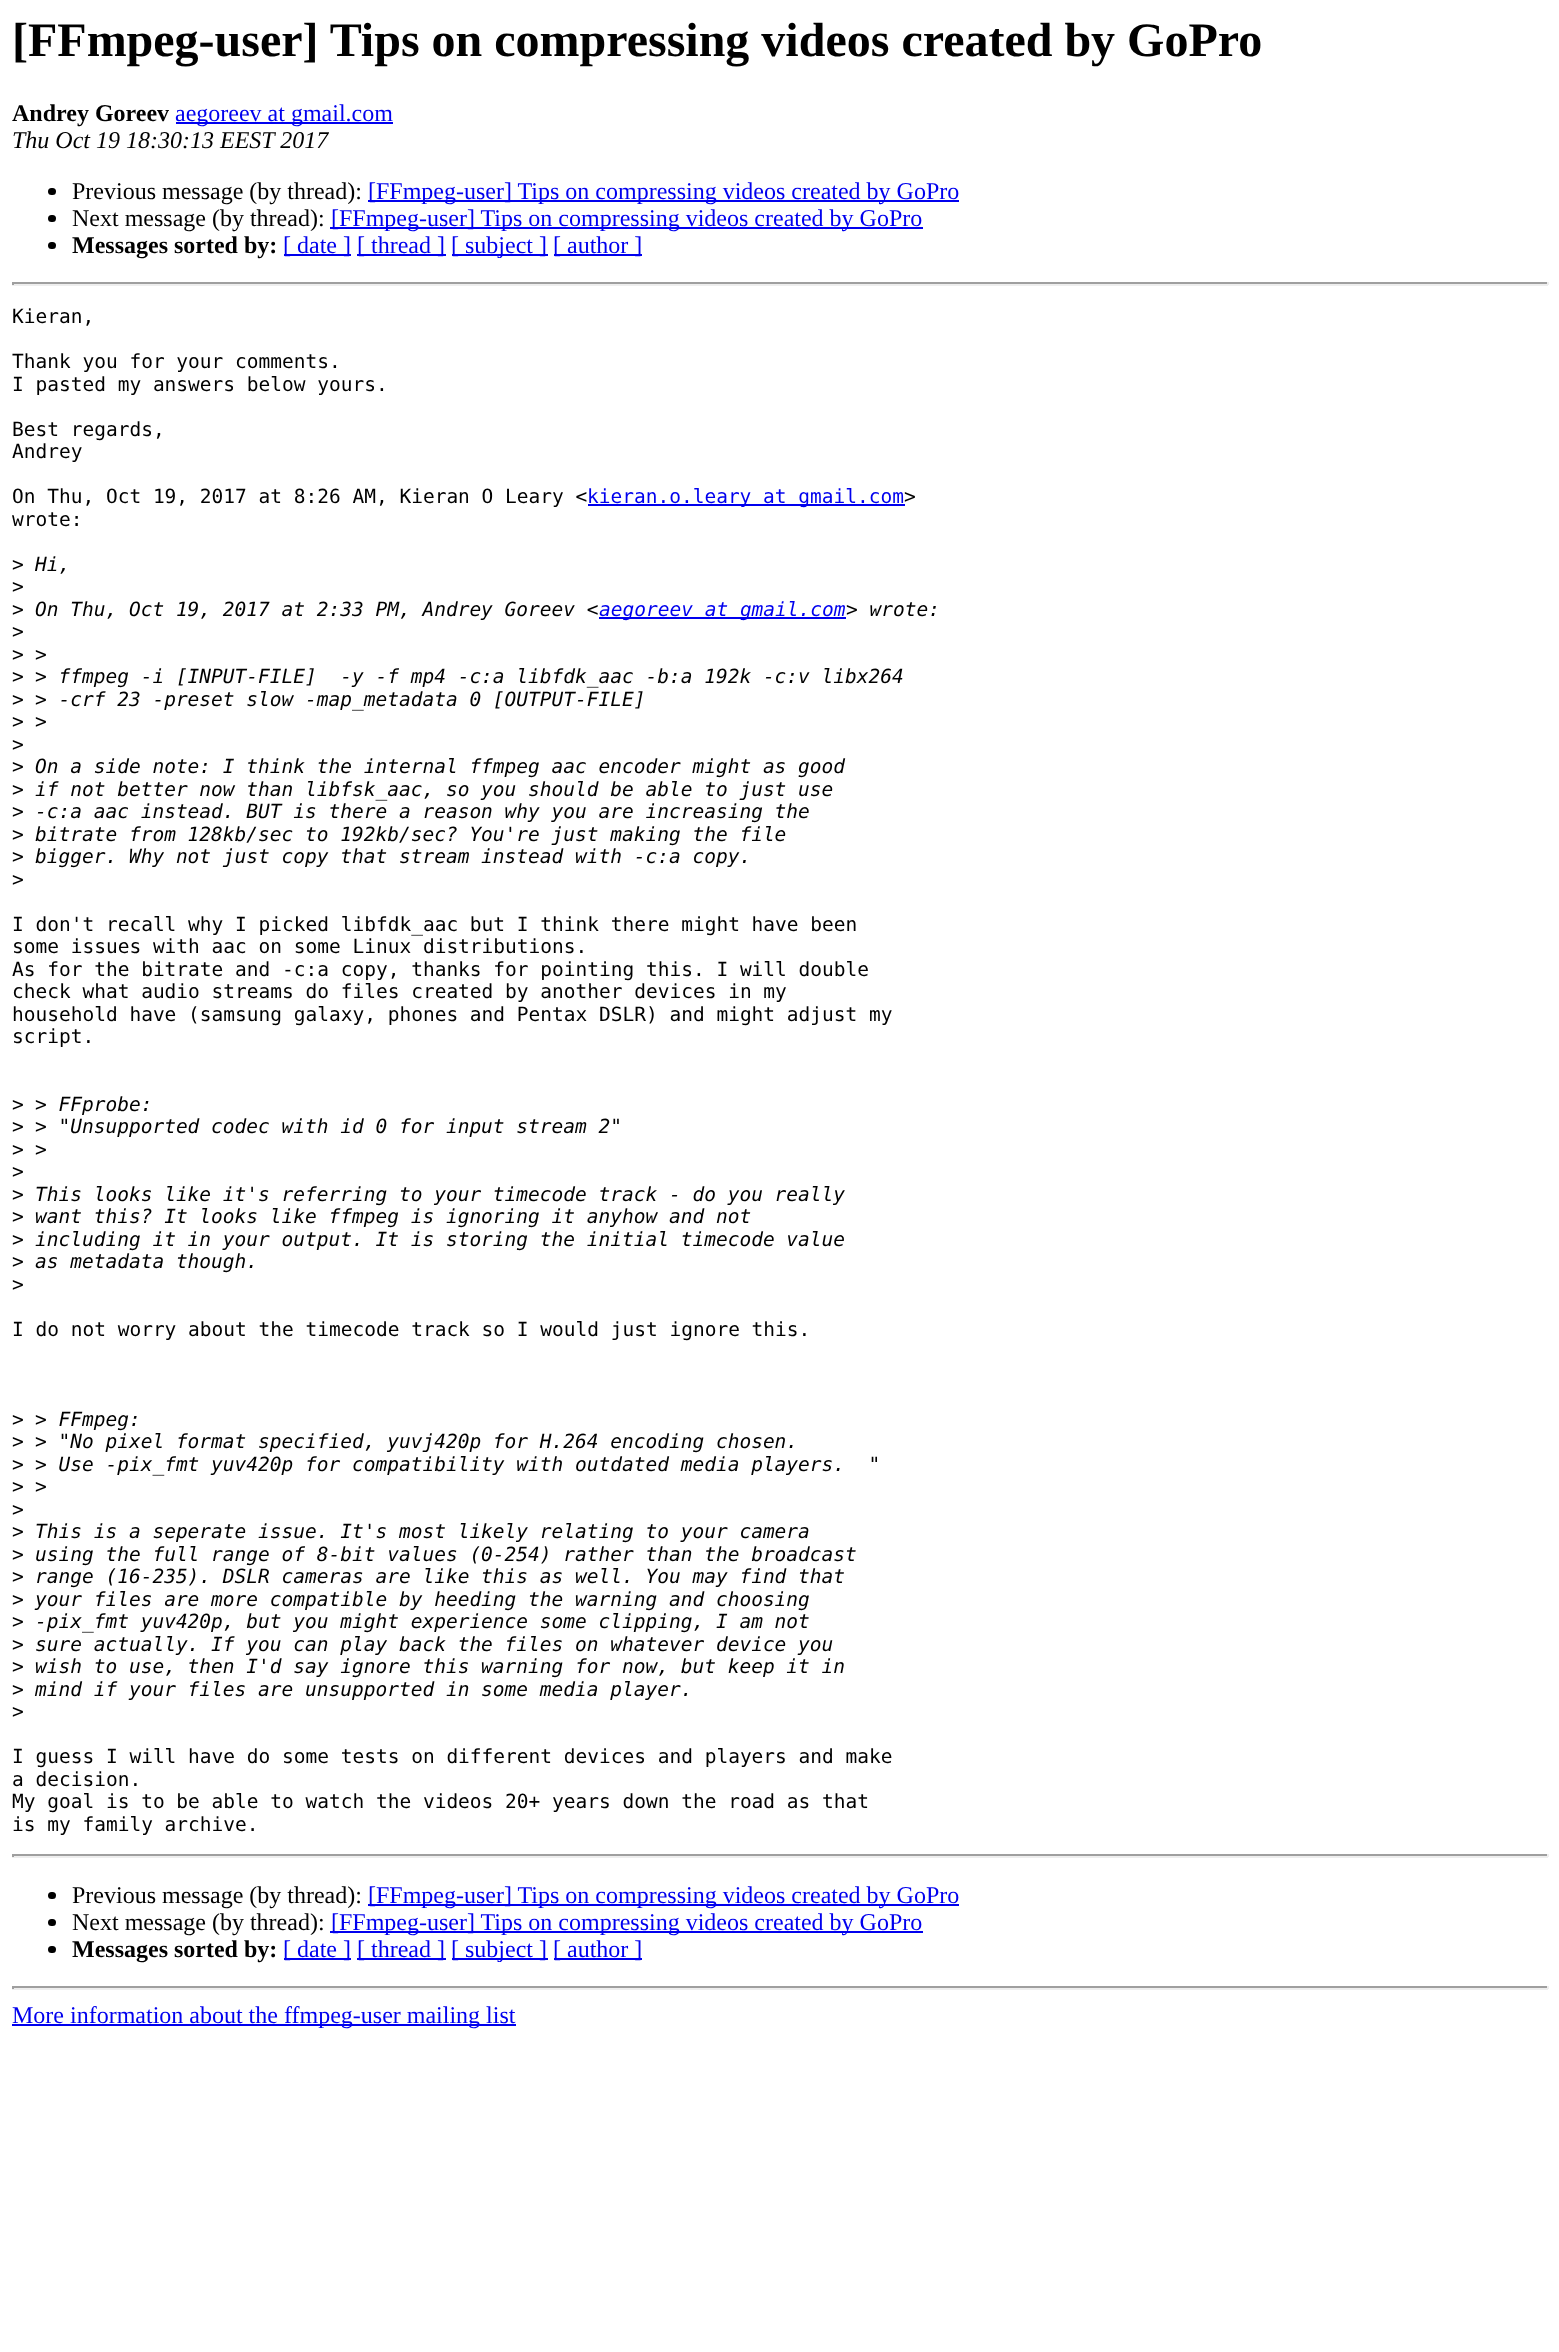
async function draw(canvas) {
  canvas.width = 1559
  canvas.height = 2352
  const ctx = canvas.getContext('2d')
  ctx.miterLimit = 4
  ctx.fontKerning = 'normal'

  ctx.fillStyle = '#fff'
  ctx.fillRect(0, 0, 1559, 2352)
  ctx.font = 'bold 48px Liberation Serif'
  ctx.fillStyle = '#000'
  ctx.fillText('[FFmpeg-user] Tips on compressing videos created by GoPro', 12, 56)
  ctx.font = 'bold 24px Liberation Serif'
  ctx.fillText('Andrey Goreev', 12, 121)
  ctx.fillStyle = '#00e'
  ctx.fillRect(176, 122, 217, 2)
  ctx.font = '24px Liberation Serif'
  ctx.fillText('aegoreev at gmail.com', 175, 121)
  ctx.font = 'italic 24px Liberation Serif'
  ctx.fillStyle = '#000'
  ctx.fillText('Thu Oct 19 18:30:13 EEST 2017', 12, 148)
  ctx.beginPath()
  ctx.roundRect(48, 188, 8, 7, 3.5)
  ctx.fill()
  ctx.font = '24px Liberation Serif'
  ctx.fillText('Previous message (by thread):', 72, 199)
  ctx.fillStyle = '#00e'
  ctx.fillRect(368, 200, 591, 2)
  ctx.fillText('[FFmpeg-user] Tips on compressing videos created by GoPro', 368, 199)
  ctx.fillStyle = '#000'
  ctx.beginPath()
  ctx.roundRect(48, 215, 8, 7, 3.5)
  ctx.fill()
  ctx.fillText('Next message (by thread):', 72, 226)
  ctx.fillStyle = '#00e'
  ctx.fillRect(330, 227, 593, 2)
  ctx.fillText('[FFmpeg-user] Tips on compressing videos created by GoPro', 331, 226)
  ctx.fillStyle = '#000'
  ctx.beginPath()
  ctx.roundRect(48, 242, 8, 7, 3.5)
  ctx.fill()
  ctx.font = 'bold 24px Liberation Serif'
  ctx.fillText('Messages sorted by:', 72, 253)
  ctx.fillStyle = '#00e'
  ctx.fillRect(284, 254, 67, 2)
  ctx.font = '24px Liberation Serif'
  ctx.fillText('[ date ]', 283, 253)
  ctx.fillRect(357, 254, 89, 2)
  ctx.fillText('[ thread ]', 357, 253)
  ctx.fillRect(452, 254, 96, 2)
  ctx.fillText('[ subject ]', 451, 253)
  ctx.fillRect(554, 254, 88, 2)
  ctx.fillText('[ author ]', 553, 253)
  ctx.fillStyle = '#9f9f9f'
  ctx.fillRect(12, 282, 1536, 2)
  ctx.fillStyle = '#eee'
  ctx.fillRect(1547, 282, 2, 3)
  ctx.fillRect(12, 284, 1536, 2)
  ctx.fillStyle = '#9f9f9f'
  ctx.fillRect(12, 282, 2, 3)
  ctx.font = '19.5px DejaVu Sans Mono'
  ctx.fillStyle = '#000'
  ctx.fillText('Kieran,', 12, 323)
  ctx.fillText('Thank you for your comments.', 12, 368)
  ctx.fillText('I pasted my answers below yours.', 12, 391)
  ctx.fillText('Best regards,', 12, 436)
  ctx.fillText('Andrey', 12, 458)
  ctx.fillText('On Thu, Oct 19, 2017 at 8:26 AM, Kieran O Leary <', 12, 503)
  ctx.fillStyle = '#00e'
  ctx.fillRect(588, 504, 317, 2)
  ctx.fillText('kieran.o.leary at gmail.com', 587, 503)
  ctx.fillStyle = '#000'
  ctx.fillText('>', 904, 503)
  ctx.fillText('wrote:', 12, 526)
  ctx.fillText('>', 12, 571)
  ctx.font = 'italic 19.5px DejaVu Sans Mono'
  ctx.fillText('Hi,', 35, 571)
  ctx.font = '19.5px DejaVu Sans Mono'
  ctx.fillText('>', 12, 593)
  ctx.fillText('>', 12, 616)
  ctx.font = 'italic 19.5px DejaVu Sans Mono'
  ctx.fillText('On Thu, Oct 19, 2017 at 2:33 PM, Andrey Goreev <', 35, 616)
  ctx.fillStyle = '#00e'
  ctx.fillRect(599, 617, 247, 2)
  ctx.fillText('aegoreev at gmail.com', 599, 616)
  ctx.fillStyle = '#000'
  ctx.fillText('> wrote:', 846, 616)
  ctx.font = '19.5px DejaVu Sans Mono'
  ctx.fillText('>', 12, 638)
  ctx.fillText('>', 12, 661)
  ctx.font = 'italic 19.5px DejaVu Sans Mono'
  ctx.fillText('>', 35, 661)
  ctx.font = '19.5px DejaVu Sans Mono'
  ctx.fillText('>', 12, 683)
  ctx.font = 'italic 19.5px DejaVu Sans Mono'
  ctx.fillText('> ffmpeg -i [INPUT-FILE]  -y -f mp4 -c:a libfdk_aac -b:a 192k -c:v libx264', 35, 683)
  ctx.font = '19.5px DejaVu Sans Mono'
  ctx.fillText('>', 12, 706)
  ctx.font = 'italic 19.5px DejaVu Sans Mono'
  ctx.fillText('> -crf 23 -preset slow -map_metadata 0 [OUTPUT-FILE]', 35, 706)
  ctx.font = '19.5px DejaVu Sans Mono'
  ctx.fillText('>', 12, 728)
  ctx.font = 'italic 19.5px DejaVu Sans Mono'
  ctx.fillText('>', 35, 728)
  ctx.font = '19.5px DejaVu Sans Mono'
  ctx.fillText('>', 12, 751)
  ctx.fillText('>', 12, 773)
  ctx.font = 'italic 19.5px DejaVu Sans Mono'
  ctx.fillText('On a side note: I think the internal ffmpeg aac encoder might as good', 35, 773)
  ctx.font = '19.5px DejaVu Sans Mono'
  ctx.fillText('>', 12, 796)
  ctx.font = 'italic 19.5px DejaVu Sans Mono'
  ctx.fillText('if not better now than libfsk_aac, so you should be able to just use', 35, 796)
  ctx.font = '19.5px DejaVu Sans Mono'
  ctx.fillText('>', 12, 818)
  ctx.font = 'italic 19.5px DejaVu Sans Mono'
  ctx.fillText('-c:a aac instead. BUT is there a reason why you are increasing the', 35, 818)
  ctx.font = '19.5px DejaVu Sans Mono'
  ctx.fillText('>', 12, 841)
  ctx.font = 'italic 19.5px DejaVu Sans Mono'
  ctx.fillText('bitrate from 128kb/sec to 192kb/sec? You\'re just making the file', 35, 841)
  ctx.font = '19.5px DejaVu Sans Mono'
  ctx.fillText('>', 12, 863)
  ctx.font = 'italic 19.5px DejaVu Sans Mono'
  ctx.fillText('bigger. Why not just copy that stream instead with -c:a copy.', 35, 863)
  ctx.font = '19.5px DejaVu Sans Mono'
  ctx.fillText('>', 12, 886)
  ctx.fillText('I don\'t recall why I picked libfdk_aac but I think there might have been', 12, 931)
  ctx.fillText('some issues with aac on some Linux distributions.', 12, 953)
  ctx.fillText('As for the bitrate and -c:a copy, thanks for pointing this. I will double', 12, 976)
  ctx.fillText('check what audio streams do files created by another devices in my', 12, 998)
  ctx.fillText('household have (samsung galaxy, phones and Pentax DSLR) and might adjust my', 12, 1021)
  ctx.fillText('script.', 12, 1043)
  ctx.fillText('>', 12, 1111)
  ctx.font = 'italic 19.5px DejaVu Sans Mono'
  ctx.fillText('> FFprobe:', 35, 1111)
  ctx.font = '19.5px DejaVu Sans Mono'
  ctx.fillText('>', 12, 1133)
  ctx.font = 'italic 19.5px DejaVu Sans Mono'
  ctx.fillText('> "Unsupported codec with id 0 for input stream 2"', 35, 1133)
  ctx.font = '19.5px DejaVu Sans Mono'
  ctx.fillText('>', 12, 1156)
  ctx.font = 'italic 19.5px DejaVu Sans Mono'
  ctx.fillText('>', 35, 1156)
  ctx.font = '19.5px DejaVu Sans Mono'
  ctx.fillText('>', 12, 1178)
  ctx.fillText('>', 12, 1201)
  ctx.font = 'italic 19.5px DejaVu Sans Mono'
  ctx.fillText('This looks like it\'s referring to your timecode track - do you really', 35, 1201)
  ctx.font = '19.5px DejaVu Sans Mono'
  ctx.fillText('>', 12, 1223)
  ctx.font = 'italic 19.5px DejaVu Sans Mono'
  ctx.fillText('want this? It looks like ffmpeg is ignoring it anyhow and not', 35, 1223)
  ctx.font = '19.5px DejaVu Sans Mono'
  ctx.fillText('>', 12, 1246)
  ctx.font = 'italic 19.5px DejaVu Sans Mono'
  ctx.fillText('including it in your output. It is storing the initial timecode value', 35, 1246)
  ctx.font = '19.5px DejaVu Sans Mono'
  ctx.fillText('>', 12, 1268)
  ctx.font = 'italic 19.5px DejaVu Sans Mono'
  ctx.fillText('as metadata though.', 35, 1268)
  ctx.font = '19.5px DejaVu Sans Mono'
  ctx.fillText('>', 12, 1291)
  ctx.fillText('I do not worry about the timecode track so I would just ignore this.', 12, 1336)
  ctx.fillText('>', 12, 1426)
  ctx.font = 'italic 19.5px DejaVu Sans Mono'
  ctx.fillText('> FFmpeg:', 35, 1426)
  ctx.font = '19.5px DejaVu Sans Mono'
  ctx.fillText('>', 12, 1448)
  ctx.font = 'italic 19.5px DejaVu Sans Mono'
  ctx.fillText('> "No pixel format specified, yuvj420p for H.264 encoding chosen.', 35, 1448)
  ctx.font = '19.5px DejaVu Sans Mono'
  ctx.fillText('>', 12, 1471)
  ctx.font = 'italic 19.5px DejaVu Sans Mono'
  ctx.fillText('> Use -pix_fmt yuv420p for compatibility with outdated media players.  "', 35, 1471)
  ctx.font = '19.5px DejaVu Sans Mono'
  ctx.fillText('>', 12, 1493)
  ctx.font = 'italic 19.5px DejaVu Sans Mono'
  ctx.fillText('>', 35, 1493)
  ctx.font = '19.5px DejaVu Sans Mono'
  ctx.fillText('>', 12, 1516)
  ctx.fillText('>', 12, 1538)
  ctx.font = 'italic 19.5px DejaVu Sans Mono'
  ctx.fillText('This is a seperate issue. It\'s most likely relating to your camera', 35, 1538)
  ctx.font = '19.5px DejaVu Sans Mono'
  ctx.fillText('>', 12, 1561)
  ctx.font = 'italic 19.5px DejaVu Sans Mono'
  ctx.fillText('using the full range of 8-bit values (0-254) rather than the broadcast', 35, 1561)
  ctx.font = '19.5px DejaVu Sans Mono'
  ctx.fillText('>', 12, 1583)
  ctx.font = 'italic 19.5px DejaVu Sans Mono'
  ctx.fillText('range (16-235). DSLR cameras are like this as well. You may find that', 35, 1583)
  ctx.font = '19.5px DejaVu Sans Mono'
  ctx.fillText('>', 12, 1606)
  ctx.font = 'italic 19.5px DejaVu Sans Mono'
  ctx.fillText('your files are more compatible by heeding the warning and choosing', 35, 1606)
  ctx.font = '19.5px DejaVu Sans Mono'
  ctx.fillText('>', 12, 1628)
  ctx.font = 'italic 19.5px DejaVu Sans Mono'
  ctx.fillText('-pix_fmt yuv420p, but you might experience some clipping, I am not', 35, 1628)
  ctx.font = '19.5px DejaVu Sans Mono'
  ctx.fillText('>', 12, 1651)
  ctx.font = 'italic 19.5px DejaVu Sans Mono'
  ctx.fillText('sure actually. If you can play back the files on whatever device you', 35, 1651)
  ctx.font = '19.5px DejaVu Sans Mono'
  ctx.fillText('>', 12, 1673)
  ctx.font = 'italic 19.5px DejaVu Sans Mono'
  ctx.fillText('wish to use, then I\'d say ignore this warning for now, but keep it in', 35, 1673)
  ctx.font = '19.5px DejaVu Sans Mono'
  ctx.fillText('>', 12, 1696)
  ctx.font = 'italic 19.5px DejaVu Sans Mono'
  ctx.fillText('mind if your files are unsupported in some media player.', 35, 1696)
  ctx.font = '19.5px DejaVu Sans Mono'
  ctx.fillText('>', 12, 1718)
  ctx.fillText('I guess I will have do some tests on different devices and players and make', 12, 1763)
  ctx.fillText('a decision.', 12, 1786)
  ctx.fillText('My goal is to be able to watch the videos 20+ years down the road as that', 12, 1808)
  ctx.fillText('is my family archive.', 12, 1831)
  ctx.fillStyle = '#9f9f9f'
  ctx.fillRect(12, 1854, 1536, 2)
  ctx.fillStyle = '#eee'
  ctx.fillRect(1547, 1854, 2, 3)
  ctx.fillRect(12, 1856, 1536, 2)
  ctx.fillStyle = '#9f9f9f'
  ctx.fillRect(12, 1854, 2, 3)
  ctx.fillStyle = '#000'
  ctx.beginPath()
  ctx.roundRect(48, 1892, 8, 7, 3.5)
  ctx.fill()
  ctx.font = '24px Liberation Serif'
  ctx.fillText('Previous message (by thread):', 72, 1903)
  ctx.fillStyle = '#00e'
  ctx.fillRect(368, 1904, 591, 2)
  ctx.fillText('[FFmpeg-user] Tips on compressing videos created by GoPro', 368, 1903)
  ctx.fillStyle = '#000'
  ctx.beginPath()
  ctx.roundRect(48, 1919, 8, 7, 3.5)
  ctx.fill()
  ctx.fillText('Next message (by thread):', 72, 1930)
  ctx.fillStyle = '#00e'
  ctx.fillRect(330, 1931, 593, 2)
  ctx.fillText('[FFmpeg-user] Tips on compressing videos created by GoPro', 331, 1930)
  ctx.fillStyle = '#000'
  ctx.beginPath()
  ctx.roundRect(48, 1946, 8, 7, 3.5)
  ctx.fill()
  ctx.font = 'bold 24px Liberation Serif'
  ctx.fillText('Messages sorted by:', 72, 1957)
  ctx.fillStyle = '#00e'
  ctx.fillRect(284, 1958, 67, 2)
  ctx.font = '24px Liberation Serif'
  ctx.fillText('[ date ]', 283, 1957)
  ctx.fillRect(357, 1958, 89, 2)
  ctx.fillText('[ thread ]', 357, 1957)
  ctx.fillRect(452, 1958, 96, 2)
  ctx.fillText('[ subject ]', 451, 1957)
  ctx.fillRect(554, 1958, 88, 2)
  ctx.fillText('[ author ]', 553, 1957)
  ctx.fillStyle = '#9f9f9f'
  ctx.fillRect(12, 1986, 1536, 2)
  ctx.fillStyle = '#eee'
  ctx.fillRect(1547, 1986, 2, 3)
  ctx.fillRect(12, 1988, 1536, 2)
  ctx.fillStyle = '#9f9f9f'
  ctx.fillRect(12, 1986, 2, 3)
  ctx.fillStyle = '#00e'
  ctx.fillRect(12, 2024, 504, 2)
  ctx.fillText('More information about the ffmpeg-user mailing list', 12, 2023)
}

draw(document.querySelector('canvas'))
